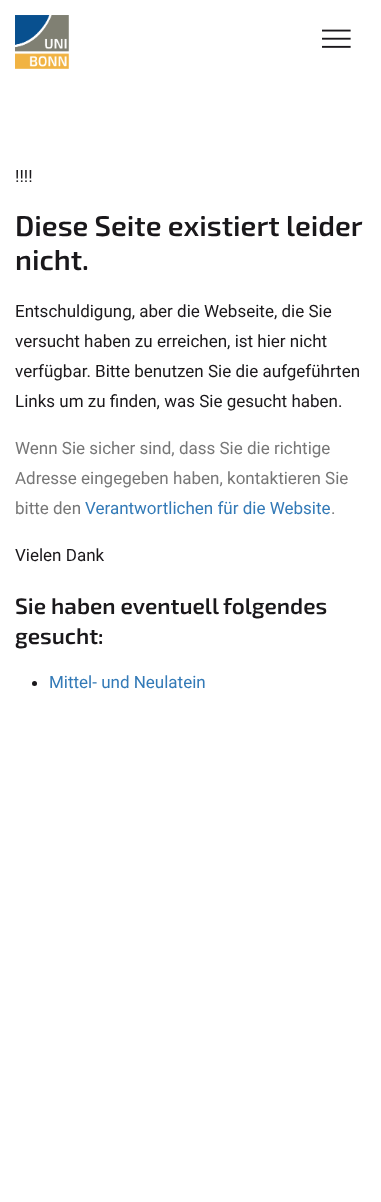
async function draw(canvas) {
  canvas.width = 381
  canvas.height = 1202
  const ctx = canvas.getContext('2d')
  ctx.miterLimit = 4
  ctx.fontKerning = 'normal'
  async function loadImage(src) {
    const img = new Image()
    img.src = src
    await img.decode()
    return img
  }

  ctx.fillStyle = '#fff'
  ctx.fillRect(0, 0, 381, 1202)
  ctx.drawImage(await loadImage('image0.png'), 15, 15, 54, 54)
  ctx.drawImage(await loadImage('image1.png'), 322, 29, 29, 19)
  ctx.font = '17px Roboto'
  ctx.fillStyle = '#1a181b'
  ctx.fillText('!!!!', 15, 182)
  ctx.font = '600 28.6px "Exo 2"'
  ctx.fillText('Diese Seite existiert leider', 15, 236)
  ctx.fillText('nicht.', 15, 270)
  ctx.font = '17px Roboto'
  ctx.fillText('Entschuldigung, aber die Webseite, die Sie', 15, 317)
  ctx.fillText('versucht haben zu erreichen, ist hier nicht', 15, 347)
  ctx.fillText('verfügbar. Bitte benutzen Sie die aufgeführten', 15, 377)
  ctx.fillText('Links um zu finden, was Sie gesucht haben.', 15, 407)
  ctx.fillStyle = '#777'
  ctx.fillText('Wenn Sie sicher sind, dass Sie die richtige', 15, 454)
  ctx.fillText('Adresse eingegeben haben, kontaktieren Sie', 15, 484)
  ctx.fillText('bitte den', 15, 514)
  ctx.fillStyle = '#337ab7'
  ctx.fillText('Verantwortlichen für die Website', 85, 514)
  ctx.fillStyle = '#777'
  ctx.fillText('.', 331, 514)
  ctx.fillStyle = '#1a181b'
  ctx.fillText('Vielen Dank', 15, 561)
  ctx.font = '600 22.4px "Exo 2"'
  ctx.fillText('Sie haben eventuell folgendes', 15, 614)
  ctx.fillText('gesucht:', 15, 644)
  ctx.beginPath()
  ctx.arc(34.5, 683.5, 2.5, 0, 2 * Math.PI)
  ctx.fill()
  ctx.font = '17px Roboto'
  ctx.fillStyle = '#337ab7'
  ctx.fillText('Mittel- und Neulatein', 49, 688)
}

draw(document.querySelector('canvas'))
